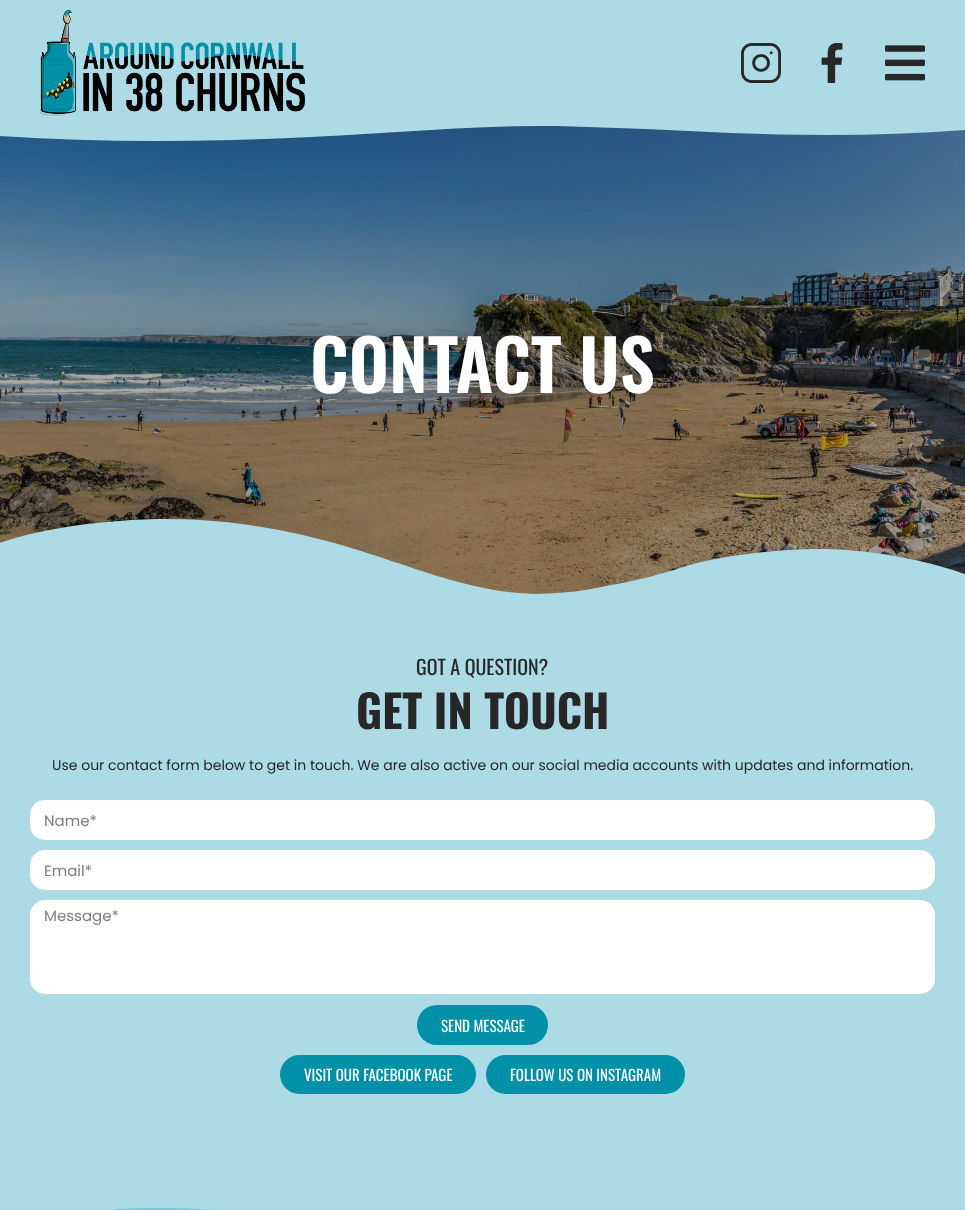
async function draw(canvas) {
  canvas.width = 965
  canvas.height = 1210
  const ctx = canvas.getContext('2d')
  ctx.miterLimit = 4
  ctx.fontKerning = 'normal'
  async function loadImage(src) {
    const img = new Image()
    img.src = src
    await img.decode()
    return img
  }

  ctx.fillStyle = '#acdbe5'
  ctx.fillRect(0, 0, 965, 1210)
  ctx.drawImage(await loadImage('image0.png'), 40, 10, 265, 106)
  ctx.drawImage(await loadImage('image1.png'), 741, 43, 40, 40)
  ctx.drawImage(await loadImage('image2.png'), 821, 43, 22, 40)
  ctx.drawImage(await loadImage('image3.png'), 885, 45, 40, 36)
  ctx.drawImage(await loadImage('image4.png'), 0, 126, 965, 468)
  ctx.beginPath()
  ctx.moveTo(557, 126)
  ctx.bezierCurveTo(475, 125, 393, 133, 311, 137)
  ctx.bezierCurveTo(207, 142, 103, 143, -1, 136)
  ctx.lineTo(-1, 125)
  ctx.lineTo(965, 125)
  ctx.lineTo(965, 130)
  ctx.bezierCurveTo(887, 136, 809, 136, 731, 133)
  ctx.lineTo(646, 129)
  ctx.bezierCurveTo(617, 128, 587, 127, 557, 126)
  ctx.closePath()
  ctx.fill()
  ctx.font = '600 70px Oswald'
  ctx.fillStyle = '#fff'
  ctx.fillText('CONTACT US', 310, 393)
  ctx.fillStyle = '#acdbe5'
  ctx.beginPath()
  ctx.moveTo(557, 593)
  ctx.bezierCurveTo(489, 599, 425, 571, 361, 551)
  ctx.bezierCurveTo(282, 526, 202, 514, 120, 521)
  ctx.bezierCurveTo(79, 524, 38, 530, -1, 543)
  ctx.lineTo(-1, 598)
  ctx.lineTo(965, 598)
  ctx.lineTo(965, 574)
  ctx.bezierCurveTo(965, 574, 896, 548, 812, 549)
  ctx.bezierCurveTo(774, 550, 722, 555, 683, 567)
  ctx.bezierCurveTo(662, 574, 632, 582, 606, 586)
  ctx.bezierCurveTo(579, 592, 567, 592, 557, 593)
  ctx.closePath()
  ctx.fill()
  ctx.font = '20px Oswald'
  ctx.fillStyle = '#272727'
  ctx.fillText('GOT A QUESTION?', 416, 675)
  ctx.font = 'bold 45px Oswald'
  ctx.fillText('GET IN TOUCH', 356, 729)
  ctx.font = '14px Poppins'
  ctx.fillText('Use our contact form below to get in touch. We are also active on our social media accounts with updates and information.', 52, 770)
  ctx.fillStyle = '#fff'
  ctx.beginPath()
  ctx.roundRect(30, 800, 905, 40, 15)
  ctx.fill()
  ctx.font = '15px Poppins'
  ctx.fillStyle = '#7d7d7d'
  ctx.fillText('Name*', 44, 826)
  ctx.fillStyle = '#fff'
  ctx.beginPath()
  ctx.roundRect(30, 850, 905, 40, 15)
  ctx.fill()
  ctx.fillStyle = '#7d7d7d'
  ctx.fillText('Email*', 44, 876)
  ctx.fillStyle = '#fff'
  ctx.beginPath()
  ctx.roundRect(30, 900, 905, 94, 15)
  ctx.fill()
  ctx.fillStyle = '#7d7d7d'
  ctx.fillText('Message*', 44, 921)
  ctx.fillStyle = '#0091a9'
  ctx.beginPath()
  ctx.roundRect(417, 1005, 131, 40, 20)
  ctx.fill()
  ctx.font = '15px Oswald'
  ctx.fillStyle = '#fff'
  ctx.fillText('SEND MESSAGE', 441, 1032)
  ctx.fillStyle = '#0091a9'
  ctx.beginPath()
  ctx.roundRect(280, 1055, 196, 39, 19.5)
  ctx.fill()
  ctx.fillStyle = '#fff'
  ctx.fillText('VISIT OUR FACEBOOK PAGE', 304, 1081)
  ctx.fillStyle = '#0091a9'
  ctx.beginPath()
  ctx.roundRect(486, 1055, 199, 39, 19.5)
  ctx.fill()
  ctx.fillStyle = '#fff'
  ctx.fillText('FOLLOW US ON INSTAGRAM', 510, 1081)
  ctx.fillStyle = '#76c5d2'
  ctx.beginPath()
  ctx.moveTo(557, 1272)
  ctx.bezierCurveTo(481, 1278, 408, 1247, 335, 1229)
  ctx.bezierCurveTo(265, 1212, 192, 1205, 120, 1209)
  ctx.bezierCurveTo(79, 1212, 38, 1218, -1, 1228)
  ctx.lineTo(-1, 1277)
  ctx.lineTo(965, 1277)
  ctx.lineTo(965, 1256)
  ctx.bezierCurveTo(965, 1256, 896, 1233, 812, 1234)
  ctx.bezierCurveTo(774, 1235, 722, 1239, 683, 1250)
  ctx.bezierCurveTo(662, 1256, 632, 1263, 606, 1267)
  ctx.bezierCurveTo(579, 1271, 567, 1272, 557, 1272)
  ctx.closePath()
  ctx.fill()
}

draw(document.querySelector('canvas'))
